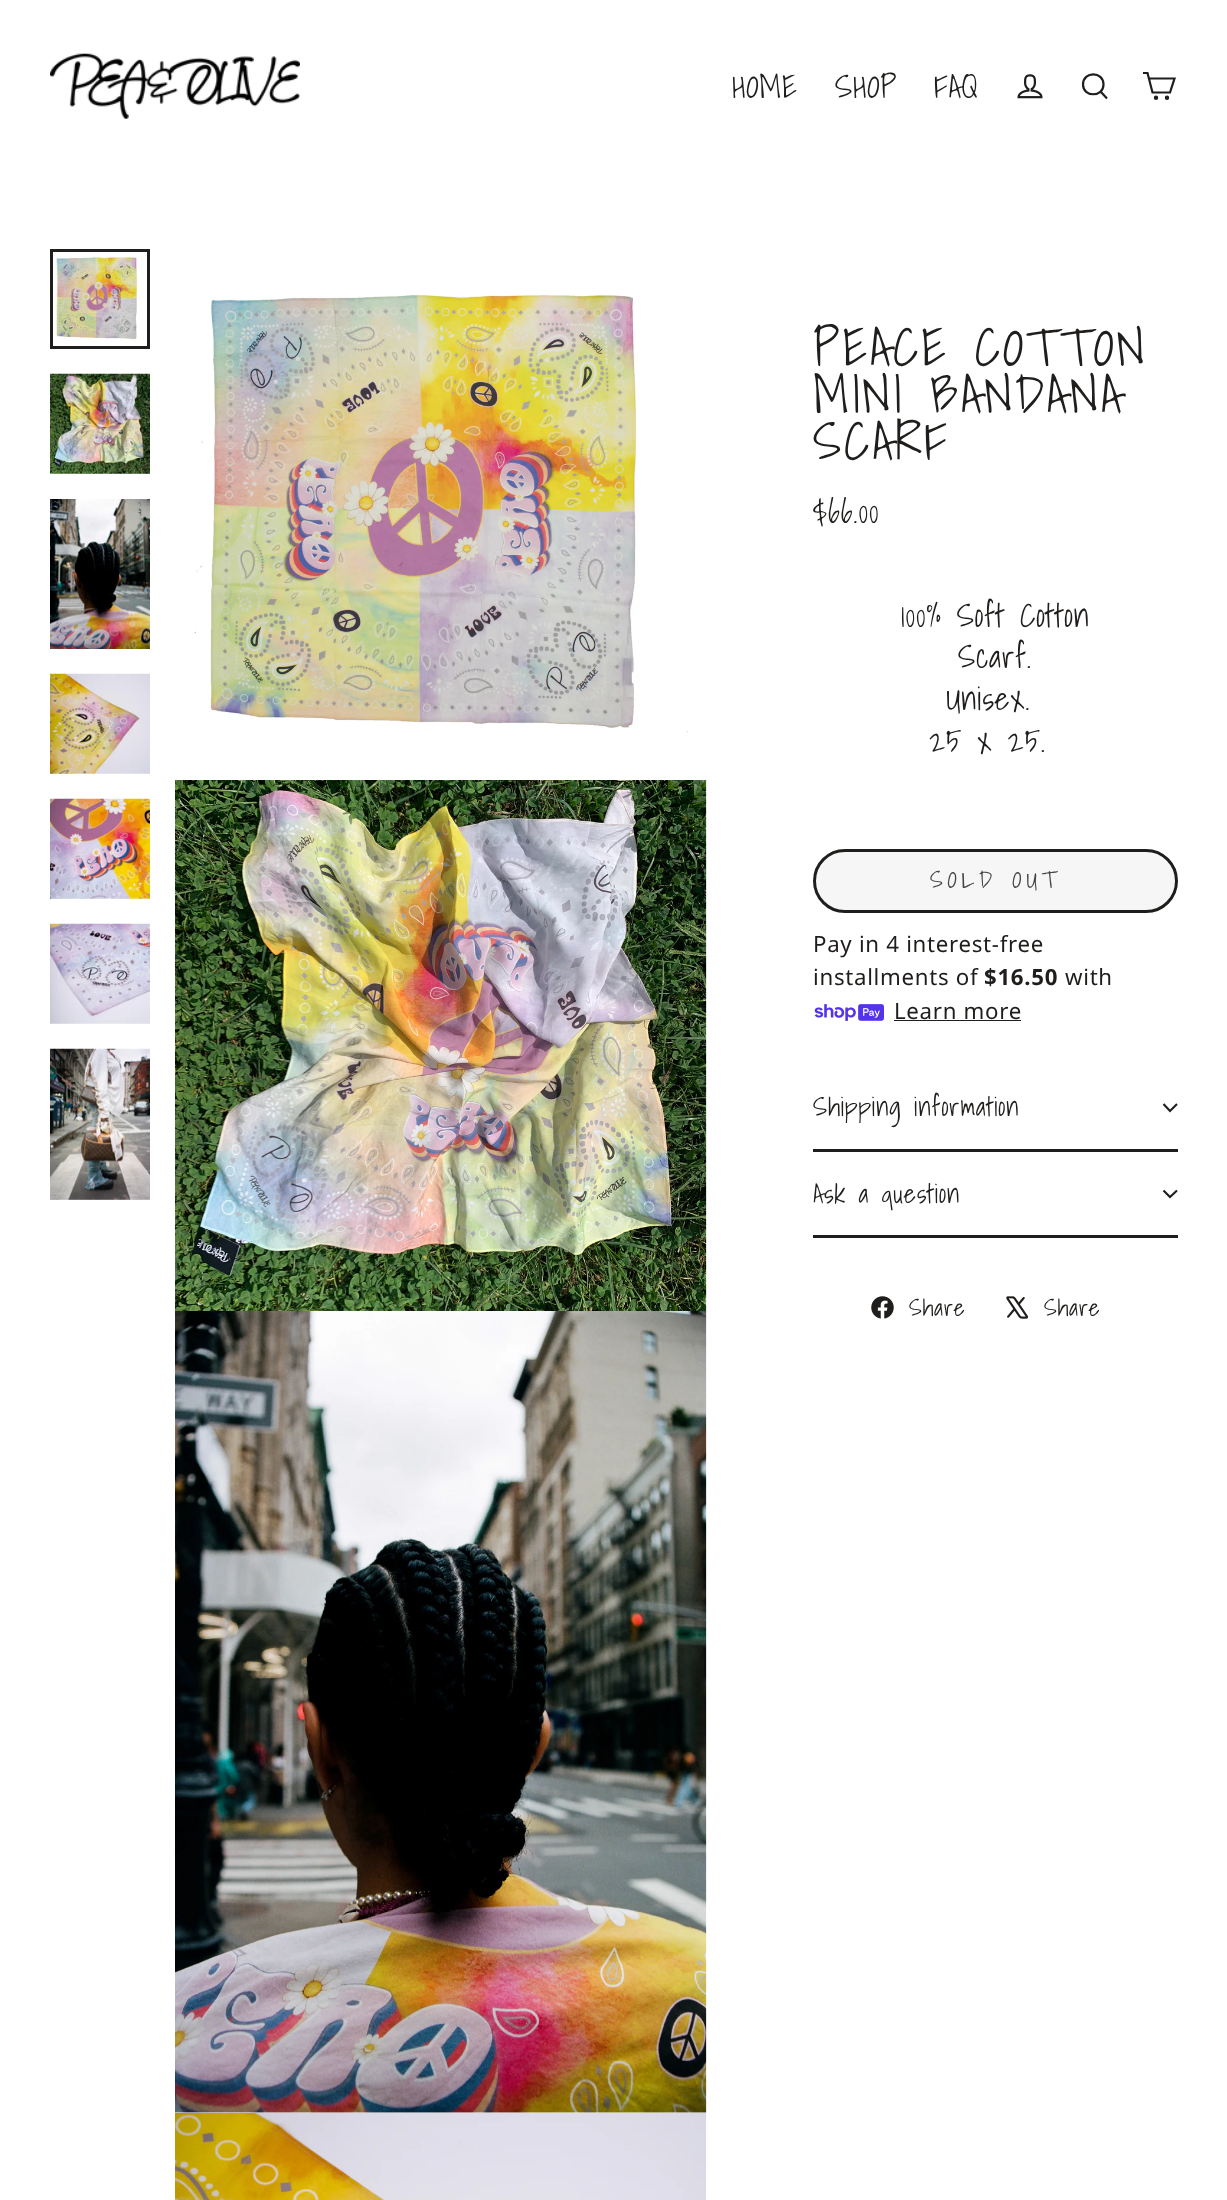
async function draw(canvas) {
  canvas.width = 1227
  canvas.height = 2200
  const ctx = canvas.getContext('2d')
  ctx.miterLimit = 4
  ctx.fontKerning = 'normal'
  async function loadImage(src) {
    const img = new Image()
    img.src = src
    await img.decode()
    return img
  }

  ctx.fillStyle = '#fff'
  ctx.fillRect(0, 0, 1227, 2200)
  ctx.drawImage(await loadImage('image0.png'), 50, 53, 250, 66)
  ctx.letterSpacing = '0.7px'
  ctx.font = '300 32px Shadows Into Light'
  ctx.fillStyle = '#201e1c'
  ctx.fillText('HOME', 732, 98)
  ctx.fillText('SHOP', 835, 98)
  ctx.fillText('FAQ', 934, 98)
  ctx.drawImage(await loadImage('image1.png'), 1017, 74, 26, 25)
  ctx.beginPath()
  ctx.moveTo(1103.5, 84.5)
  ctx.bezierCurveTo(1103.5, 97.5, 1083, 97.5, 1083, 84.5)
  ctx.bezierCurveTo(1083, 71, 1103.5, 71, 1103.5, 84.5)
  ctx.closePath()
  ctx.moveTo(1107, 98.5)
  ctx.lineTo(1100.5, 91.5)
  ctx.strokeStyle = '#201e1c'
  ctx.lineWidth = 2.2
  ctx.stroke()
  ctx.beginPath()
  ctx.moveTo(1149, 78.5)
  ctx.lineTo(1174.5, 78.5)
  ctx.lineTo(1170, 92.5)
  ctx.lineTo(1152.5, 92.5)
  ctx.lineTo(1147.5, 73)
  ctx.lineTo(1143, 73)
  ctx.stroke()
  ctx.beginPath()
  ctx.arc(1156, 97.7, 1.1, 0, 2 * Math.PI)
  ctx.stroke()
  ctx.beginPath()
  ctx.arc(1167, 97.7, 1.1, 0, 2 * Math.PI)
  ctx.stroke()
  ctx.drawImage(await loadImage('image2.png'), 56, 255, 87, 87)
  ctx.lineWidth = 3
  ctx.strokeRect(51.5, 250.5, 97, 97)
  ctx.drawImage(await loadImage('image3.png'), 50, 373, 100, 101)
  ctx.drawImage(await loadImage('image4.png'), 50, 499, 100, 150)
  ctx.drawImage(await loadImage('image5.png'), 50, 673, 100, 101)
  ctx.drawImage(await loadImage('image6.png'), 50, 798, 100, 101)
  ctx.drawImage(await loadImage('image7.png'), 50, 923, 100, 101)
  ctx.drawImage(await loadImage('image8.png'), 50, 1048, 100, 152)
  ctx.drawImage(await loadImage('image9.png'), 194, 294, 494, 485)
  ctx.drawImage(await loadImage('image10.png'), 175, 780, 532, 531)
  ctx.drawImage(await loadImage('image11.png'), 175, 1311, 532, 802)
  ctx.drawImage(await loadImage('image12.png'), 175, 2113, 532, 87)
  ctx.letterSpacing = '2.6px'
  ctx.font = '300 52.5px Shadows Into Light'
  ctx.fillText('PEACE COTTON', 813, 366)
  ctx.fillText('MINI BANDANA', 813, 413)
  ctx.fillText('SCARF', 813, 460)
  ctx.letterSpacing = '0.7px'
  ctx.font = '300 32px Shadows Into Light'
  ctx.fillText('$66.00', 813, 523)
  ctx.fillText('100% Soft Cotton', 901, 627)
  ctx.fillText('Scarf.', 958, 668)
  ctx.fillText('Unisex.', 946, 710)
  ctx.fillText('25 x 25.', 929, 752)
  ctx.fillStyle = '#f6f6f6'
  ctx.beginPath()
  ctx.roundRect(814.5, 850.5, 362, 61, 30.5)
  ctx.fill()
  ctx.stroke()
  ctx.letterSpacing = '4.75px'
  ctx.font = '300 23.75px Shadows Into Light'
  ctx.fillStyle = '#444'
  ctx.fillText('SOLD OUT', 930, 888)
  ctx.letterSpacing = '0.7px'
  ctx.font = '22.25px Noto Sans'
  ctx.fillStyle = '#201e1c'
  ctx.fillText('Pay in 4 interest-free', 813, 952)
  ctx.fillText('installments of', 813, 985)
  ctx.font = 'bold 22.25px Noto Sans'
  ctx.fillText('$16.50', 984, 985)
  ctx.font = '22.25px Noto Sans'
  ctx.fillText('with', 1065, 985)
  ctx.drawImage(await loadImage('image13.png'), 814, 1004, 70, 17)
  ctx.fillText('Learn more', 894, 1019)
  ctx.fillRect(894, 1020, 127, 1)
  ctx.fillRect(813, 1149, 365, 3)
  ctx.font = '300 26.25px Shadows Into Light'
  ctx.fillText('Shipping information', 813, 1116)
  ctx.beginPath()
  ctx.moveTo(1163.5, 1104)
  ctx.lineTo(1170, 1111)
  ctx.lineTo(1177, 1104)
  ctx.lineWidth = 2.1
  ctx.stroke()
  ctx.fillRect(813, 1235, 365, 3)
  ctx.fillText('Ask a question', 813, 1203)
  ctx.beginPath()
  ctx.moveTo(1163.5, 1190.5)
  ctx.lineTo(1170, 1197)
  ctx.lineTo(1177, 1190.5)
  ctx.stroke()
  ctx.drawImage(await loadImage('image14.png'), 871, 1296, 23, 23)
  ctx.font = '300 23.75px Shadows Into Light'
  ctx.fillText('Share', 909, 1316)
  ctx.drawImage(await loadImage('image15.png'), 1006, 1296, 22, 23)
  ctx.fillText('Share', 1044, 1316)
}

draw(document.querySelector('canvas'))
